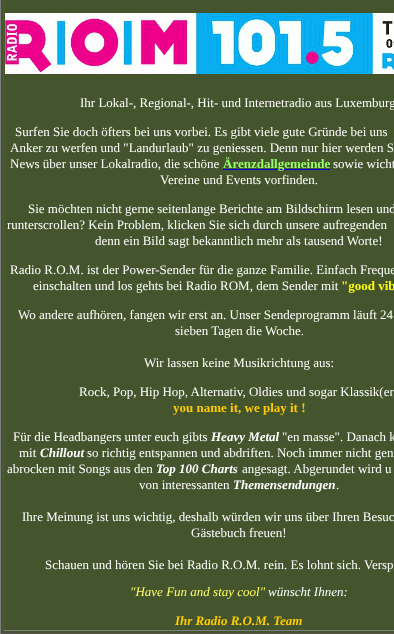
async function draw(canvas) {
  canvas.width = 394
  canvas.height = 634
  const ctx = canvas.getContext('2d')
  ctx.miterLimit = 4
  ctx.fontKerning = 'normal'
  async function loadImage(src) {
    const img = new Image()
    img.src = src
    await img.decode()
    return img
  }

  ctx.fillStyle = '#44552d'
  ctx.fillRect(0, 0, 394, 634)
  ctx.fillStyle = '#555'
  ctx.fillRect(0, 633, 394, 1)
  ctx.fillStyle = '#808080'
  ctx.fillRect(0, 0, 1, 634)
  ctx.fillRect(3, 630, 391, 1)
  ctx.fillStyle = '#555'
  ctx.fillRect(3, 0, 1, 631)
  ctx.drawImage(await loadImage('image0.png'), 5, 13, 389, 61)
  ctx.font = '13px Liberation Serif'
  ctx.fillStyle = '#fff'
  ctx.fillText('Ihr Lokal-, Regional-, Hit- und Internetradio aus Luxemburg', 80, 107)
  ctx.fillText('Surfen Sie doch öfters bei uns vorbei. Es gibt viele gute Gründe bei uns', 15, 136)
  ctx.fillText('Anker zu werfen und "Landurlaub" zu geniessen. Denn nur hier werden S', 10, 152)
  ctx.fillText('News über unser Lokalradio, die schöne', 10, 168)
  ctx.fillStyle = '#00e'
  ctx.fillRect(223, 169, 107, 1)
  ctx.font = 'bold 13px Liberation Serif'
  ctx.fillStyle = '#9f6'
  ctx.fillText('Ärenzdallgemeinde', 223, 168)
  ctx.font = '13px Liberation Serif'
  ctx.fillStyle = '#fff'
  ctx.fillText('sowie wicht', 333, 168)
  ctx.fillText('Vereine und Events vorfinden.', 160, 184)
  ctx.fillText('Sie möchten nicht gerne seitenlange Berichte am Bildschirm lesen und', 28, 213)
  ctx.fillText('runterscrollen? Kein Problem, klicken Sie sich durch unsere aufregenden', 7, 229)
  ctx.fillText('denn ein Bild sagt bekanntlich mehr als tausend Worte!', 95, 245)
  ctx.fillText('Radio R.O.M. ist der Power-Sender für die ganze Familie. Einfach Freque', 10, 274)
  ctx.fillText('einschalten und los gehts bei Radio ROM, dem Sender mit', 33, 290)
  ctx.font = 'bold 13px Liberation Serif'
  ctx.fillStyle = '#ff0'
  ctx.fillText('"good vib', 341, 290)
  ctx.font = '13px Liberation Serif'
  ctx.fillStyle = '#fff'
  ctx.fillText('Wo andere aufhören, fangen wir erst an. Unser Sendeprogramm läuft 24', 18, 319)
  ctx.fillText('sieben Tagen die Woche.', 175, 335)
  ctx.fillText('Wir lassen keine Musikrichtung aus:', 144, 367)
  ctx.fillText('Rock, Pop, Hip Hop, Alternativ, Oldies und sogar Klassik(er', 79, 396)
  ctx.font = 'bold 13px Liberation Serif'
  ctx.fillStyle = '#fc0'
  ctx.fillText('you name it, we play it !', 173, 412)
  ctx.font = '13px Liberation Serif'
  ctx.fillStyle = '#fff'
  ctx.fillText('Für die Headbangers unter euch gibts', 13, 441)
  ctx.font = 'italic bold 13px Liberation Serif'
  ctx.fillText('Heavy Metal', 211, 441)
  ctx.font = '13px Liberation Serif'
  ctx.fillText('"en masse". Danach k', 282, 441)
  ctx.fillText('mit', 19, 457)
  ctx.font = 'italic bold 13px Liberation Serif'
  ctx.fillText('Chillout', 40, 457)
  ctx.font = '13px Liberation Serif'
  ctx.fillText('so richtig entspannen und abdriften. Noch immer nicht gen', 87, 457)
  ctx.fillText('abrocken mit Songs aus den', 7, 473)
  ctx.font = 'italic bold 13px Liberation Serif'
  ctx.fillText('Top 100 Charts', 156, 473)
  ctx.font = '13px Liberation Serif'
  ctx.fillText('angesagt. Abgerundet wird u', 242, 473)
  ctx.fillText('von interessanten', 139, 489)
  ctx.font = 'italic bold 13px Liberation Serif'
  ctx.fillText('Themensendungen', 233, 489)
  ctx.font = '13px Liberation Serif'
  ctx.fillText('.', 336, 489)
  ctx.fillText('Ihre Meinung ist uns wichtig, deshalb würden wir uns über Ihren Besuc', 22, 521)
  ctx.fillText('Gästebuch freuen!', 191, 537)
  ctx.fillText('Schauen und hören Sie bei Radio R.O.M. rein. Es lohnt sich. Versp', 45, 569)
  ctx.font = 'italic 13px Liberation Serif'
  ctx.fillStyle = '#ff6'
  ctx.fillText('"Have Fun and stay cool"', 130, 596)
  ctx.fillStyle = '#fff'
  ctx.fillText('wünscht Ihnen:', 268, 596)
  ctx.font = 'italic bold 13px Liberation Serif'
  ctx.fillStyle = '#fc0'
  ctx.fillText('Ihr Radio R.O.M. Team', 175, 625)
}

draw(document.querySelector('canvas'))
